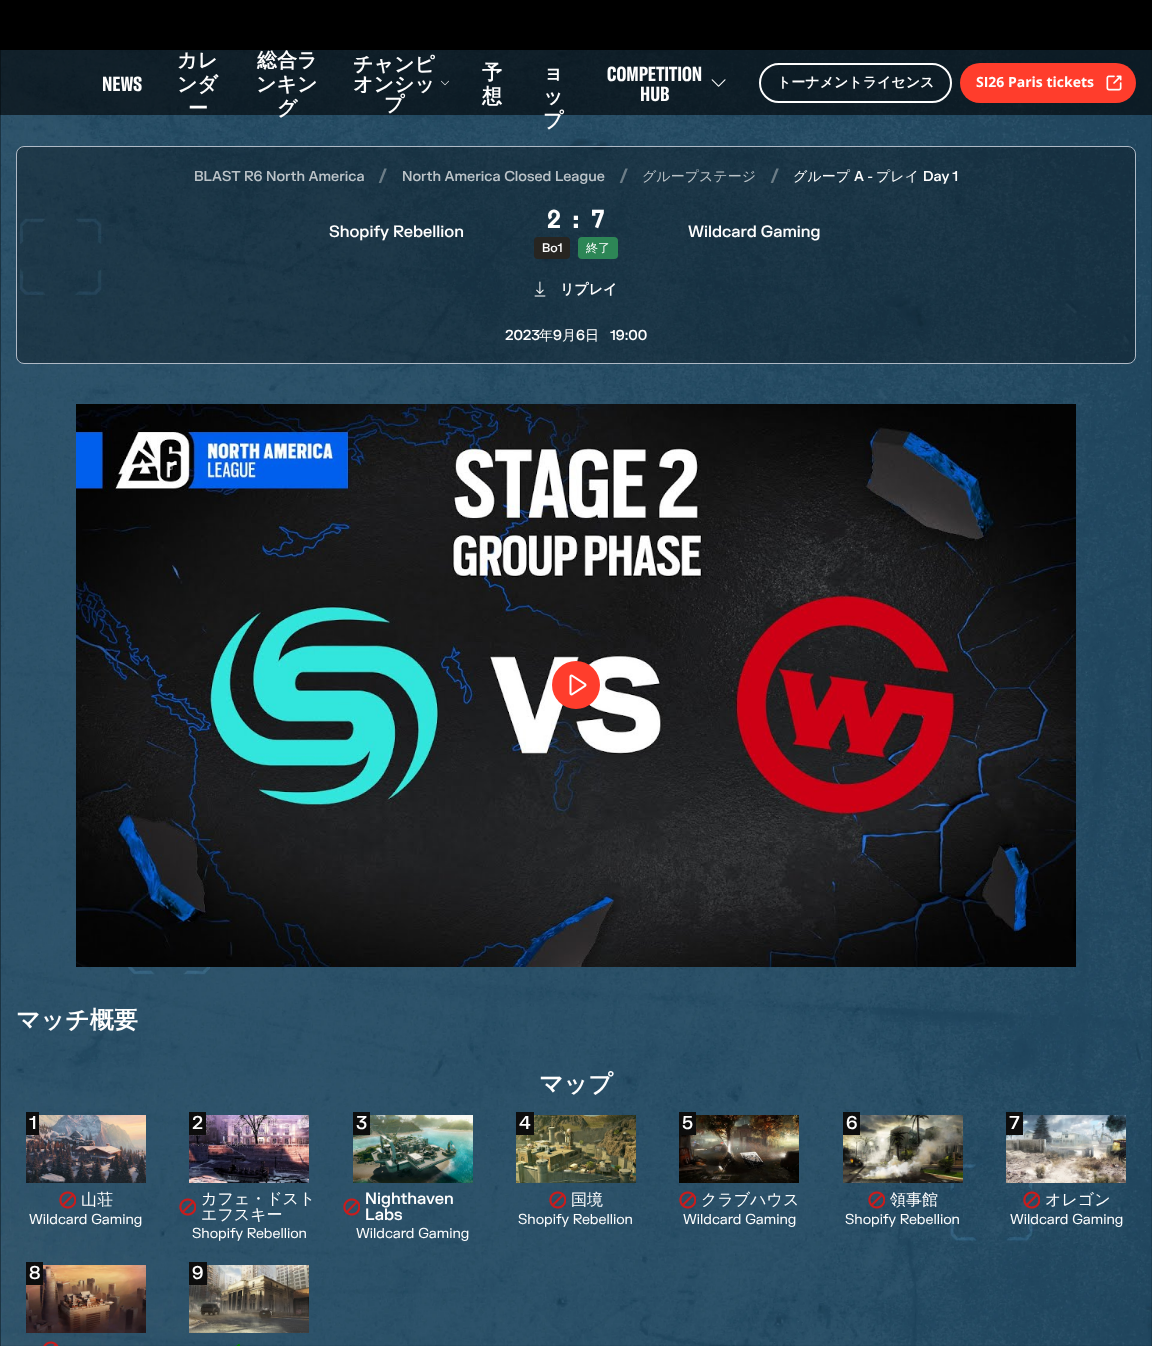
async function draw(canvas) {
  canvas.width = 1152
  canvas.height = 1346
  const ctx = canvas.getContext('2d')
  ctx.miterLimit = 4
  ctx.fontKerning = 'normal'
  async function loadImage(src) {
    const img = new Image()
    img.src = src
    await img.decode()
    return img
  }

  ctx.fillStyle = '#080707'
  ctx.fillRect(0, 0, 1152, 1346)
  ctx.drawImage(await loadImage('image0.png'), 0, 50, 1152, 1296)
  ctx.fillStyle = '#000'
  ctx.fillRect(0, 0, 1152, 50)
  ctx.fillStyle = '#00000099'
  ctx.fillRect(0, 50, 1152, 65)
  ctx.font = 'bold 20px GT America'
  ctx.fillStyle = '#fefefe'
  ctx.fillText('NEWS', 102, 91)
  ctx.font = 'bold 20px WenQuanYi Zen Hei'
  ctx.fillText('カレ', 177, 67)
  ctx.fillText('ンダ', 177, 91)
  ctx.fillText('ー', 188, 115)
  ctx.fillText('総合ラ', 257, 67)
  ctx.fillText('ンキン', 256, 91)
  ctx.fillText('グ', 277, 115)
  ctx.fillText('チャンピ', 353, 71)
  ctx.fillText('オンシッ', 353, 91)
  ctx.fillText('プ', 384, 111)
  ctx.drawImage(await loadImage('image1.png'), 441, 80, 8, 6)
  ctx.fillText('予', 482, 79)
  ctx.fillText('想', 482, 103)
  ctx.fillText('ョ', 543, 79)
  ctx.fillText('ッ', 543, 103)
  ctx.fillText('プ', 543, 127)
  ctx.font = 'bold 20px GT America'
  ctx.fillText('COMPETITION', 607, 81)
  ctx.fillText('HUB', 640, 101)
  ctx.drawImage(await loadImage('image2.png'), 711, 79, 15, 8)
  ctx.beginPath()
  ctx.roundRect(760, 64, 191, 38, 19)
  ctx.strokeStyle = '#fefefe'
  ctx.lineWidth = 2
  ctx.stroke()
  ctx.font = 'bold 14px WenQuanYi Zen Hei'
  ctx.fillText('トーナメントライセンス', 777, 87)
  ctx.fillStyle = '#ff3d2c'
  ctx.beginPath()
  ctx.roundRect(960, 63, 176, 40, 20)
  ctx.fill()
  ctx.font = 'bold 14px Open Sans'
  ctx.fillStyle = '#fefefe'
  ctx.fillText('SI26 Paris tickets', 976, 87)
  ctx.drawImage(await loadImage('image3.png'), 1106, 75, 16, 16)
  ctx.fillStyle = '#0000004d'
  ctx.beginPath()
  ctx.roundRect(16.5, 146.5, 1119, 217, 7.5)
  ctx.fill()
  ctx.strokeStyle = '#b0bac6'
  ctx.lineWidth = 1
  ctx.stroke()
  ctx.font = '500 14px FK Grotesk'
  ctx.fillStyle = '#bbc3c8'
  ctx.fillText('BLAST R6 North America', 194, 181)
  ctx.font = '500 20px FK Grotesk'
  ctx.fillStyle = '#6c7d87'
  ctx.fillText('/', 378, 183)
  ctx.font = '500 14px FK Grotesk'
  ctx.fillStyle = '#bbc3c8'
  ctx.fillText('North America Closed League', 402, 181)
  ctx.font = '500 20px FK Grotesk'
  ctx.fillStyle = '#6c7d87'
  ctx.fillText('/', 619, 183)
  ctx.font = '500 14px WenQuanYi Zen Hei'
  ctx.fillStyle = '#bbc3c8'
  ctx.fillText('グループステージ', 642, 181)
  ctx.font = '500 20px FK Grotesk'
  ctx.fillStyle = '#6c7d87'
  ctx.fillText('/', 770, 183)
  ctx.font = '500 14px WenQuanYi Zen Hei'
  ctx.fillStyle = '#fefefe'
  ctx.fillText('グループ', 793, 181)
  ctx.font = '500 14px FK Grotesk'
  ctx.fillText('A -', 854, 181)
  ctx.font = '500 14px WenQuanYi Zen Hei'
  ctx.fillText('プレイ', 876, 181)
  ctx.font = '500 14px FK Grotesk'
  ctx.fillText('Day 1', 923, 181)
  ctx.font = '500 16px FK Grotesk'
  ctx.fillText('Shopify Rebellion', 329, 237)
  ctx.font = 'bold 26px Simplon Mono'
  ctx.fillText('2', 546, 228)
  ctx.fillText(':', 568, 228)
  ctx.fillText('7', 590, 228)
  ctx.fillStyle = '#272521'
  ctx.beginPath()
  ctx.roundRect(534, 237, 36, 22, 4)
  ctx.fill()
  ctx.font = '500 12px FK Grotesk'
  ctx.fillStyle = '#fefefe'
  ctx.fillText('Bo1', 542, 252)
  ctx.fillStyle = '#2d8656'
  ctx.beginPath()
  ctx.roundRect(578, 237, 40, 22, 4)
  ctx.fill()
  ctx.font = '500 12px WenQuanYi Zen Hei'
  ctx.fillStyle = '#fefefe'
  ctx.fillText('終了', 586, 252)
  ctx.font = '500 16px FK Grotesk'
  ctx.fillText('Wildcard Gaming', 688, 237)
  ctx.drawImage(await loadImage('image4.png'), 534, 281, 12, 16)
  ctx.font = 'bold 14px WenQuanYi Zen Hei'
  ctx.fillText('リプレイ', 560, 294)
  ctx.font = '500 14px FK Grotesk'
  ctx.fillText('2023', 505, 340)
  ctx.font = '500 14px WenQuanYi Zen Hei'
  ctx.fillText('年', 539, 340)
  ctx.font = '500 14px FK Grotesk'
  ctx.fillText('9', 553, 340)
  ctx.font = '500 14px WenQuanYi Zen Hei'
  ctx.fillText('月', 562, 340)
  ctx.font = '500 14px FK Grotesk'
  ctx.fillText('6', 576, 340)
  ctx.font = '500 14px WenQuanYi Zen Hei'
  ctx.fillText('日', 585, 340)
  ctx.font = '500 14px FK Grotesk'
  ctx.fillText('19:00', 610, 340)
  ctx.drawImage(await loadImage('image5.png'), 76, 404, 1000, 563)
  ctx.fillStyle = '#ff3d2c'
  ctx.beginPath()
  ctx.arc(576, 685, 24, 0, 2 * Math.PI)
  ctx.fill()
  ctx.drawImage(await loadImage('image6.png'), 569, 674, 18, 22)
  ctx.font = 'bold 24px WenQuanYi Zen Hei'
  ctx.fillStyle = '#fefefe'
  ctx.fillText('マッチ概要', 16, 1028)
  ctx.fillText('マップ', 539, 1092)
  ctx.drawImage(await loadImage('image7.png'), 26, 1115, 120, 68)
  ctx.fillStyle = '#0d0d0d'
  ctx.fillRect(26, 1112, 13, 23)
  ctx.font = '500 18px FK Grotesk'
  ctx.fillStyle = '#fefefe'
  ctx.fillText('1', 29, 1129)
  ctx.drawImage(await loadImage('image8.png'), 59, 1191, 17, 18)
  ctx.font = '500 16px WenQuanYi Zen Hei'
  ctx.fillText('山荘', 81, 1205)
  ctx.font = '14px FK Grotesk'
  ctx.fillText('Wildcard Gaming', 29, 1224)
  ctx.drawImage(await loadImage('image9.png'), 189, 1115, 120, 68)
  ctx.fillStyle = '#0d0d0d'
  ctx.fillRect(189, 1112, 17, 23)
  ctx.font = '500 18px FK Grotesk'
  ctx.fillStyle = '#fefefe'
  ctx.fillText('2', 192, 1129)
  ctx.drawImage(await loadImage('image10.png'), 179, 1198, 17, 18)
  ctx.font = '500 16px WenQuanYi Zen Hei'
  ctx.fillText('カフェ・ドスト', 201, 1204)
  ctx.fillText('エフスキー', 201, 1220)
  ctx.font = '14px FK Grotesk'
  ctx.fillText('Shopify Rebellion', 192, 1238)
  ctx.drawImage(await loadImage('image11.png'), 353, 1115, 120, 68)
  ctx.fillStyle = '#0d0d0d'
  ctx.fillRect(353, 1112, 17, 23)
  ctx.font = '500 18px FK Grotesk'
  ctx.fillStyle = '#fefefe'
  ctx.fillText('3', 356, 1129)
  ctx.drawImage(await loadImage('image12.png'), 343, 1198, 17, 18)
  ctx.font = '500 16px FK Grotesk'
  ctx.fillText('Nighthaven', 365, 1204)
  ctx.fillText('Labs', 365, 1220)
  ctx.font = '14px FK Grotesk'
  ctx.fillText('Wildcard Gaming', 356, 1238)
  ctx.drawImage(await loadImage('image13.png'), 516, 1115, 120, 68)
  ctx.fillStyle = '#0d0d0d'
  ctx.fillRect(516, 1112, 18, 23)
  ctx.font = '500 18px FK Grotesk'
  ctx.fillStyle = '#fefefe'
  ctx.fillText('4', 519, 1129)
  ctx.drawImage(await loadImage('image14.png'), 549, 1191, 17, 18)
  ctx.font = '500 16px WenQuanYi Zen Hei'
  ctx.fillText('国境', 571, 1205)
  ctx.font = '14px FK Grotesk'
  ctx.fillText('Shopify Rebellion', 518, 1224)
  ctx.drawImage(await loadImage('image15.png'), 679, 1115, 120, 68)
  ctx.fillStyle = '#0d0d0d'
  ctx.fillRect(679, 1112, 17, 23)
  ctx.font = '500 18px FK Grotesk'
  ctx.fillStyle = '#fefefe'
  ctx.fillText('5', 682, 1129)
  ctx.drawImage(await loadImage('image16.png'), 679, 1191, 17, 18)
  ctx.font = '500 16px WenQuanYi Zen Hei'
  ctx.fillText('クラブハウス', 701, 1205)
  ctx.font = '14px FK Grotesk'
  ctx.fillText('Wildcard Gaming', 683, 1224)
  ctx.drawImage(await loadImage('image17.png'), 843, 1115, 120, 68)
  ctx.fillStyle = '#0d0d0d'
  ctx.fillRect(843, 1112, 17, 23)
  ctx.font = '500 18px FK Grotesk'
  ctx.fillStyle = '#fefefe'
  ctx.fillText('6', 846, 1129)
  ctx.drawImage(await loadImage('image18.png'), 868, 1191, 17, 18)
  ctx.font = '500 16px WenQuanYi Zen Hei'
  ctx.fillText('領事館', 890, 1205)
  ctx.font = '14px FK Grotesk'
  ctx.fillText('Shopify Rebellion', 845, 1224)
  ctx.drawImage(await loadImage('image19.png'), 1006, 1115, 120, 68)
  ctx.fillStyle = '#0d0d0d'
  ctx.fillRect(1006, 1112, 17, 23)
  ctx.font = '500 18px FK Grotesk'
  ctx.fillStyle = '#fefefe'
  ctx.fillText('7', 1009, 1129)
  ctx.drawImage(await loadImage('image20.png'), 1023, 1191, 17, 18)
  ctx.font = '500 16px WenQuanYi Zen Hei'
  ctx.fillText('オレゴン', 1045, 1205)
  ctx.font = '14px FK Grotesk'
  ctx.fillText('Wildcard Gaming', 1010, 1224)
  ctx.drawImage(await loadImage('image21.png'), 26, 1265, 120, 68)
  ctx.fillStyle = '#0d0d0d'
  ctx.fillRect(26, 1262, 17, 23)
  ctx.font = '500 18px FK Grotesk'
  ctx.fillStyle = '#fefefe'
  ctx.fillText('8', 29, 1279)
  ctx.drawImage(await loadImage('image22.png'), 43, 1341, 16, 5)
  ctx.drawImage(await loadImage('image23.png'), 189, 1265, 120, 68)
  ctx.fillStyle = '#0d0d0d'
  ctx.fillRect(189, 1262, 18, 23)
  ctx.fillStyle = '#fefefe'
  ctx.fillText('9', 192, 1279)
  ctx.drawImage(await loadImage('image24.png'), 236, 1344, 4, 2)
}

draw(document.querySelector('canvas'))
